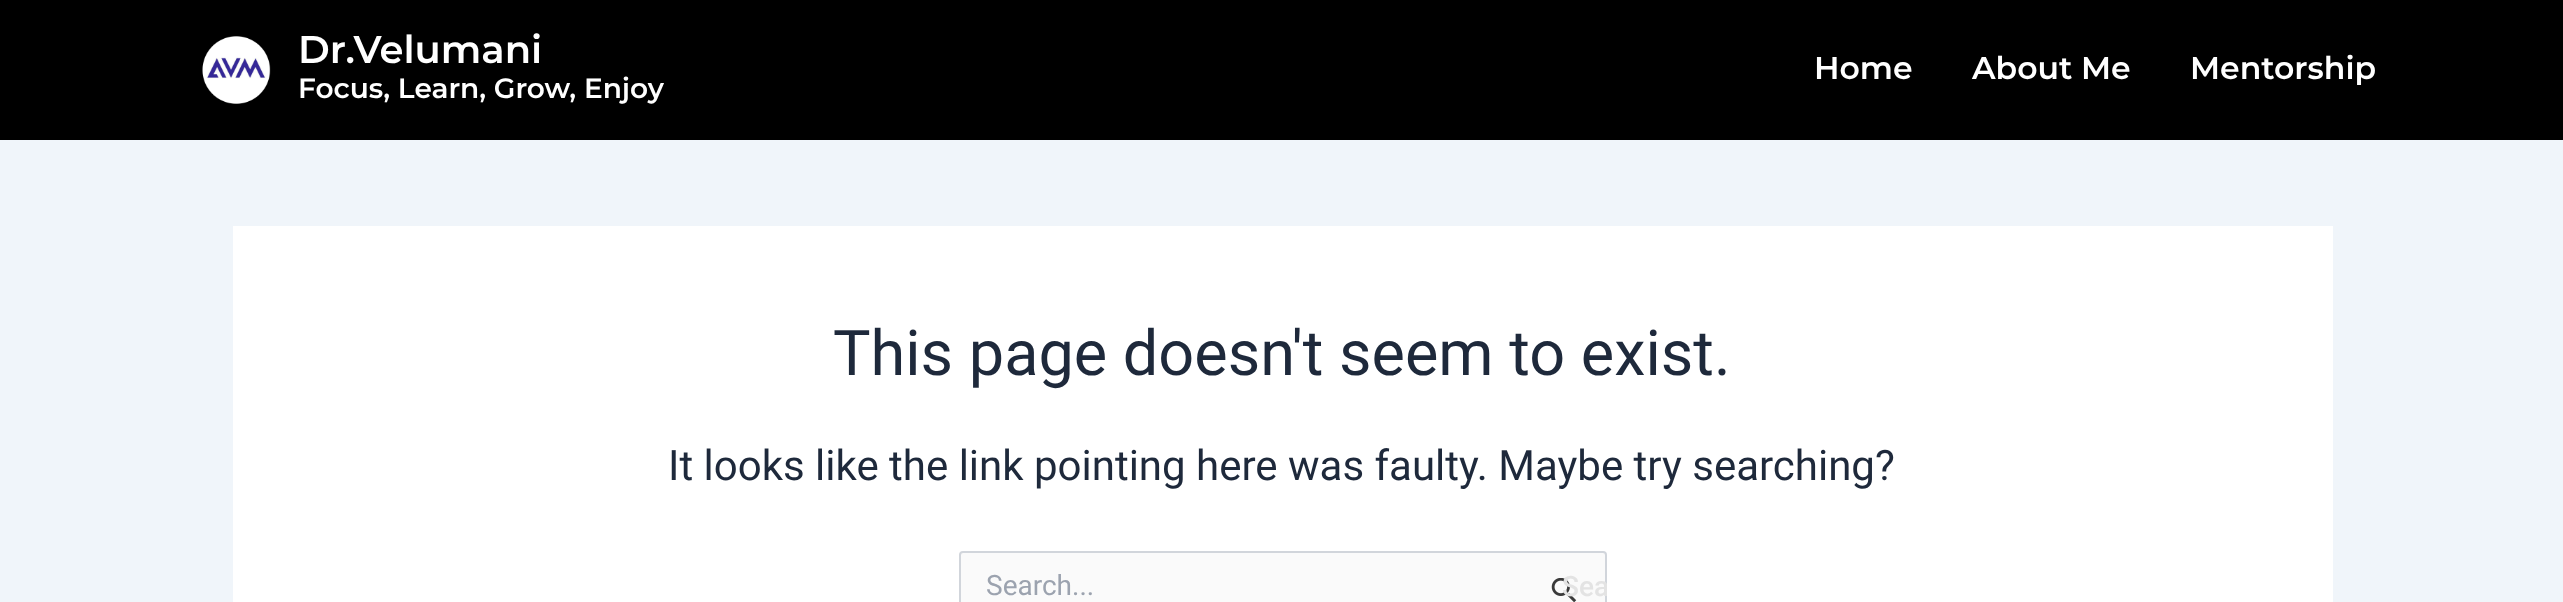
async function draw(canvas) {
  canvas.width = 2563
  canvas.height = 602
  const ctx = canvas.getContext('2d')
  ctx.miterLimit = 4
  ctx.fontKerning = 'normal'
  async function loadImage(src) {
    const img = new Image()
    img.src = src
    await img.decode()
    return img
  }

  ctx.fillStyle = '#f0f5fa'
  ctx.fillRect(0, 0, 2563, 602)
  ctx.fillStyle = '#000'
  ctx.fillRect(0, 0, 2563, 140)
  ctx.drawImage(await loadImage('image0.png'), 202, 36, 69, 68)
  ctx.font = '600 38.5px Montserrat'
  ctx.fillStyle = '#fff'
  ctx.fillText('Dr.Velumani', 298, 63)
  ctx.font = '600 28px Montserrat'
  ctx.fillText('Focus, Learn, Grow, Enjoy', 298, 98)
  ctx.font = '600 31.5px Montserrat'
  ctx.fillText('Home', 1814, 79)
  ctx.fillText('About Me', 1972, 79)
  ctx.fillText('Mentorship', 2190, 79)
  ctx.fillRect(233, 226, 2100, 376)
  ctx.font = '63px Roboto'
  ctx.fillStyle = '#1e293b'
  ctx.fillText('This page doesn\'t seem to exist.', 833, 375)
  ctx.font = '42px Roboto'
  ctx.fillText('It looks like the link pointing here was faulty. Maybe try searching?', 668, 480)
  ctx.fillStyle = '#fafafa'
  ctx.beginPath()
  ctx.roundRect(960, 552, 646, 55, 3)
  ctx.fill()
  ctx.strokeStyle = '#d1d5db'
  ctx.lineWidth = 2
  ctx.stroke()
  ctx.font = '28px Roboto'
  ctx.fillStyle = '#9ca3af'
  ctx.fillText('Search...', 986, 595)
  ctx.drawImage(await loadImage('image1.png'), 1551, 578, 26, 24)
  ctx.save()
  ctx.beginPath()
  ctx.roundRect(1528, 551, 79, 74, 4)
  ctx.clip()
  ctx.font = '500 28px Roboto'
  ctx.fillStyle = '#e3e3e3'
  ctx.fillText('Sea', 1562, 596)
  ctx.restore()
}

draw(document.querySelector('canvas'))
